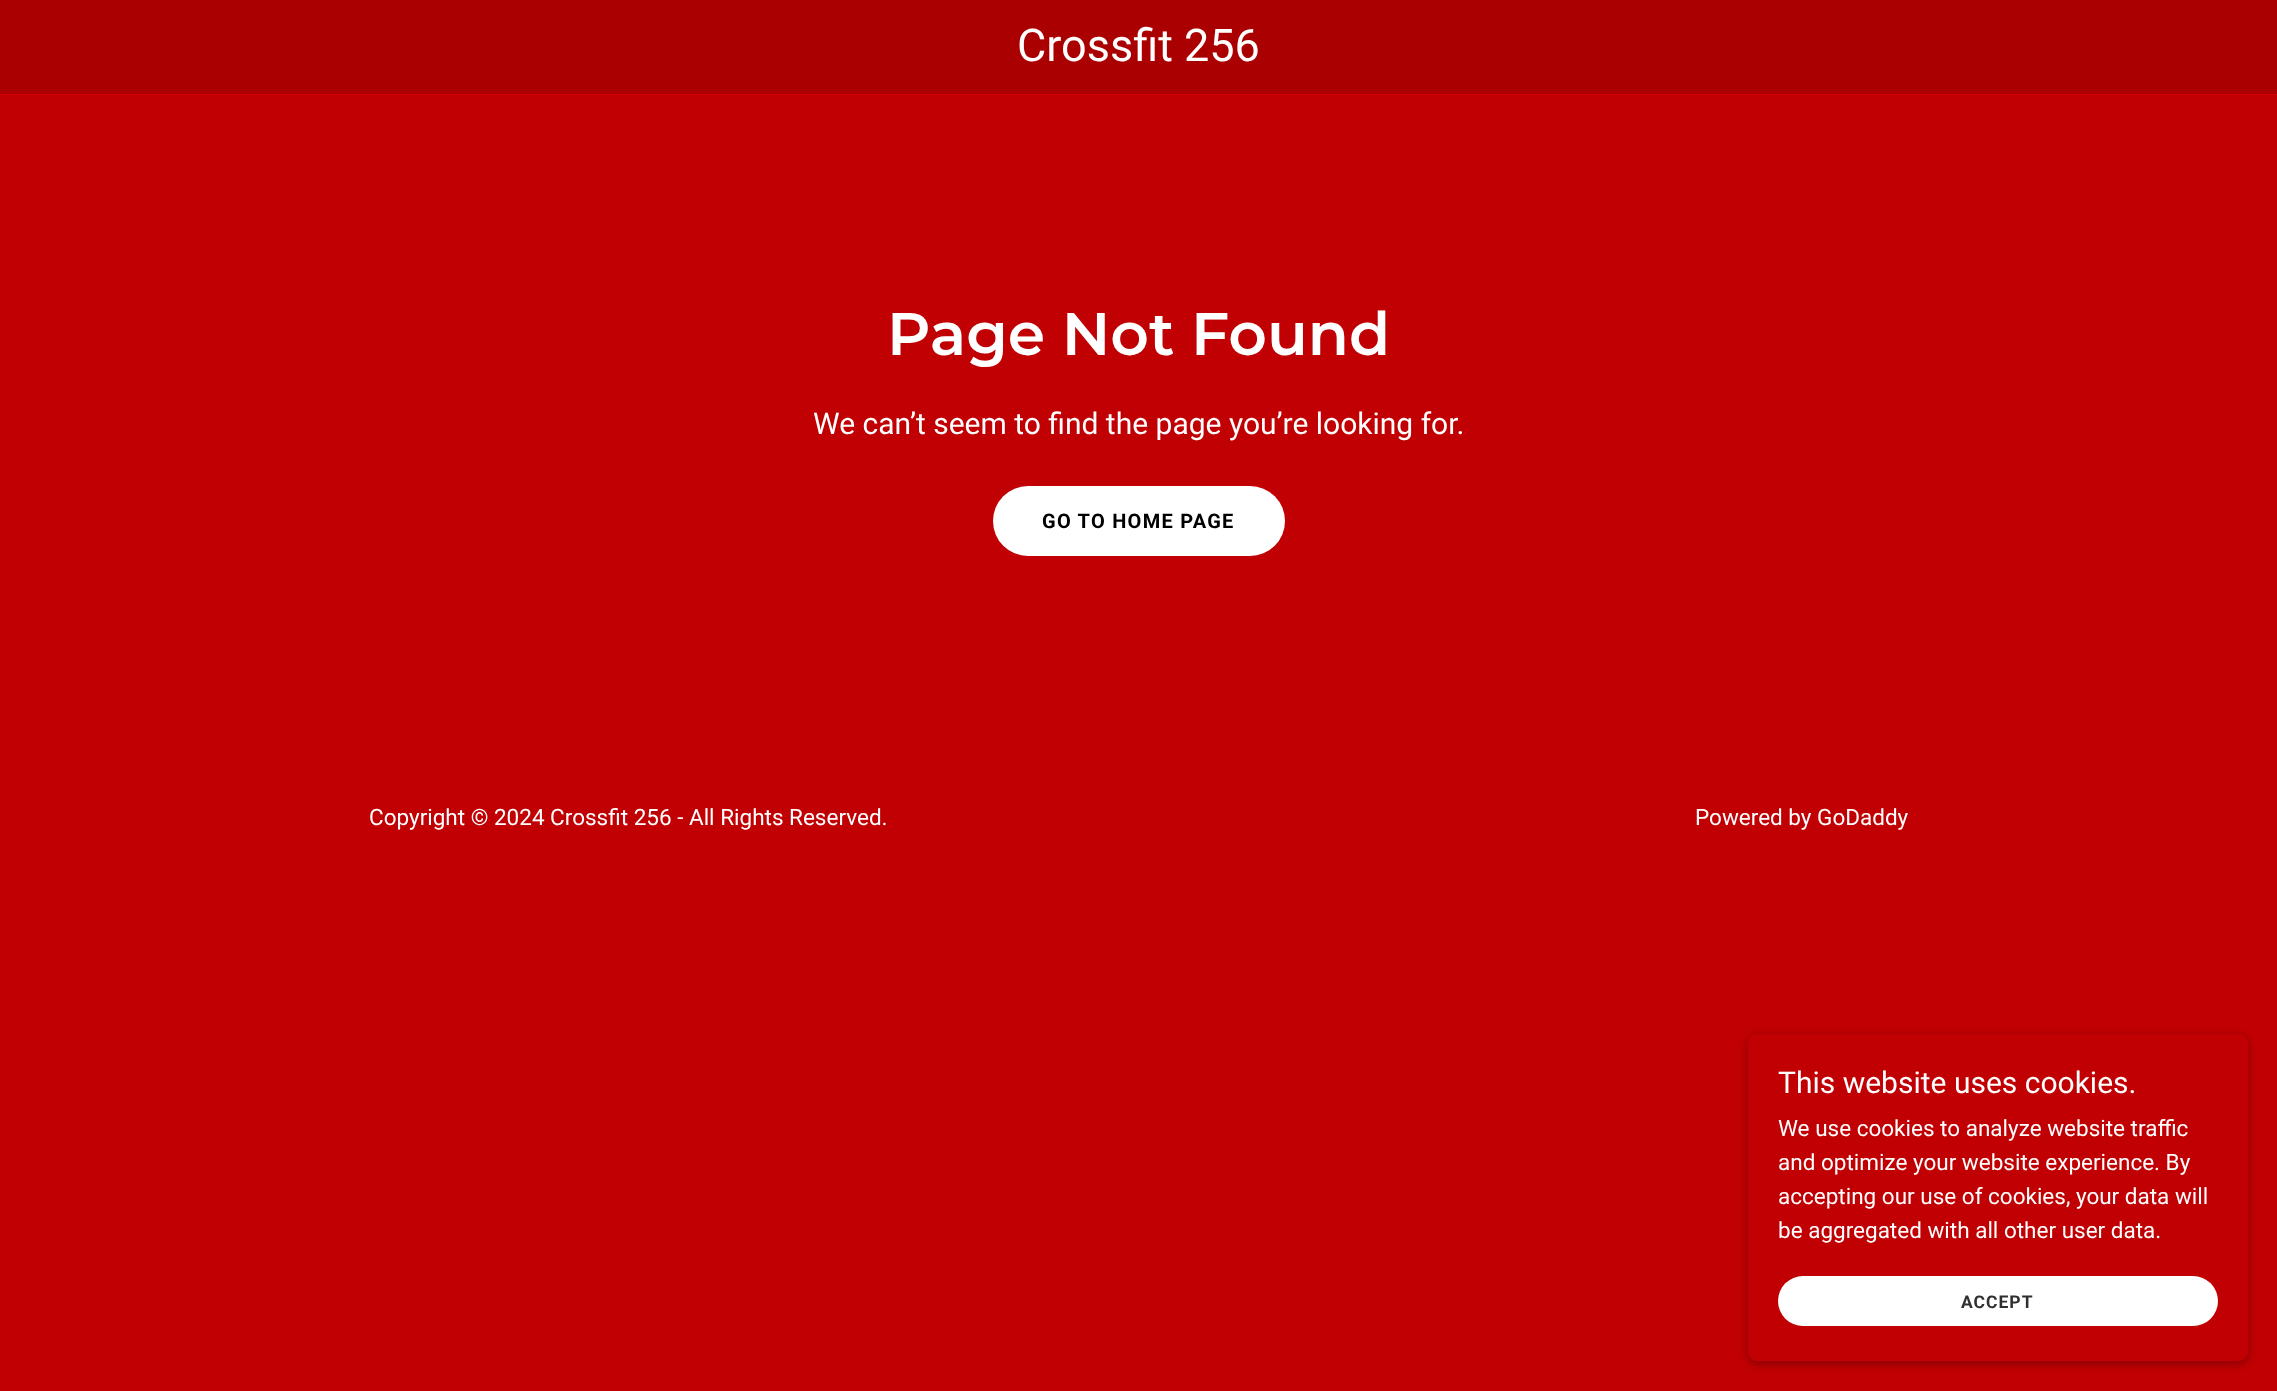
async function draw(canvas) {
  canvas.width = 2277
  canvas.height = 1391
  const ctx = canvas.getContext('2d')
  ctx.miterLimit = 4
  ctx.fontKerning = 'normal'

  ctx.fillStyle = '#c10003'
  ctx.fillRect(0, 0, 2277, 1391)
  ctx.fillStyle = '#aa0002'
  ctx.fillRect(0, 0, 2277, 94)
  ctx.font = '45px Roboto'
  ctx.fillStyle = '#fff'
  ctx.fillText('Crossfit 256', 1017, 61)
  ctx.fillStyle = '#d80004'
  ctx.fillRect(0, 94, 2277, 1)
  ctx.font = '600 60px Montserrat'
  ctx.fillStyle = '#fff'
  ctx.fillText('Page Not Found', 887, 355)
  ctx.font = '30px Roboto'
  ctx.fillText('We can’t seem to find the page you’re looking for.', 813, 434)
  ctx.beginPath()
  ctx.roundRect(993, 486, 292, 70, 35)
  ctx.fill()
  ctx.letterSpacing = '1.25px'
  ctx.font = 'bold 20px Roboto'
  ctx.fillStyle = '#000'
  ctx.fillText('GO TO HOME PAGE', 1042, 528)
  ctx.letterSpacing = '0px'
  ctx.font = '22.5px Roboto'
  ctx.fillStyle = '#fff'
  ctx.fillText('Copyright © 2024 Crossfit 256 - All Rights Reserved.', 369, 825)
  ctx.fillText('Powered by GoDaddy', 1695, 825)
  ctx.fillStyle = '#0000004d'
  ctx.filter = 'blur(4px)'
  ctx.beginPath()
  ctx.roundRect(1748, 1036, 500, 328, 9)
  ctx.fill()
  ctx.filter = 'none'
  ctx.fillStyle = '#c10003'
  ctx.beginPath()
  ctx.roundRect(1748, 1034, 500, 327, 9)
  ctx.fill()
  ctx.font = '30px Roboto'
  ctx.fillStyle = '#fff'
  ctx.fillText('This website uses cookies.', 1778, 1093)
  ctx.font = '22.5px Roboto'
  ctx.fillText('We use cookies to analyze website traffic', 1778, 1136)
  ctx.fillText('and optimize your website experience. By', 1778, 1170)
  ctx.fillText('accepting our use of cookies, your data will', 1778, 1204)
  ctx.fillText('be aggregated with all other user data.', 1778, 1238)
  ctx.beginPath()
  ctx.roundRect(1778, 1276, 440, 50, 25)
  ctx.fill()
  ctx.letterSpacing = '1px'
  ctx.font = 'bold 17.5px Roboto'
  ctx.fillStyle = '#303030'
  ctx.fillText('ACCEPT', 1961, 1308)
}

draw(document.querySelector('canvas'))
